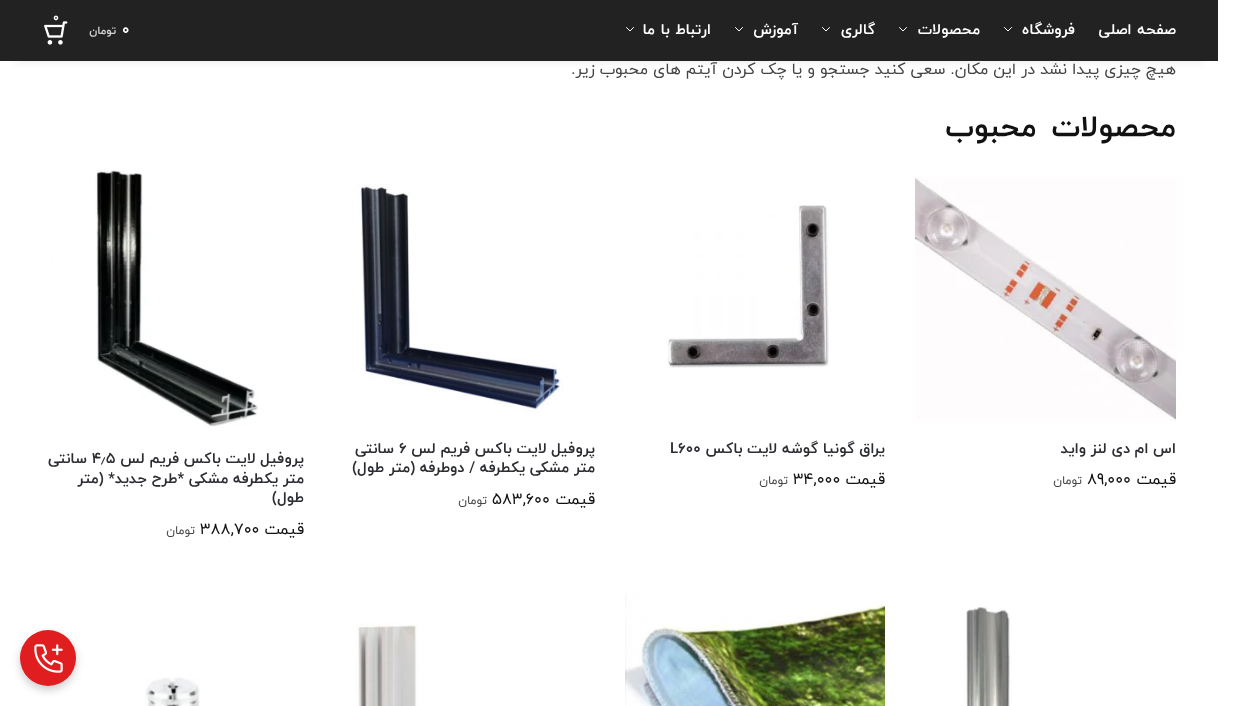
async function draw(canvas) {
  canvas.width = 1233
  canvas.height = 706
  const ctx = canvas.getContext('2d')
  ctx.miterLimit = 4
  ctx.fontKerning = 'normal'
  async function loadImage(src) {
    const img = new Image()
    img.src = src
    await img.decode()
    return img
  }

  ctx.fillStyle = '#fff'
  ctx.fillRect(0, 0, 1233, 706)
  ctx.fillStyle = '#0000001a'
  ctx.filter = 'blur(5px)'
  ctx.beginPath()
  ctx.rect(15, 30, 1188, 31)
  ctx.fill()
  ctx.filter = 'none'
  ctx.fillStyle = '#222'
  ctx.fillRect(0, 0, 1218, 61)
  ctx.letterSpacing = '-0.1px'
  ctx.wordSpacing = '1px'
  ctx.direction = 'rtl'
  ctx.font = 'bold 15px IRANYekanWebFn'
  ctx.fillStyle = '#fff'
  ctx.fillText('صفحه اصلی', 1176, 34)
  ctx.wordSpacing = '0px'
  ctx.fillText('فروشگاه', 1075, 34)
  ctx.beginPath()
  ctx.moveTo(1011.5, 27.5)
  ctx.lineTo(1008, 31)
  ctx.lineTo(1004.5, 27.5)
  ctx.strokeStyle = '#fff'
  ctx.lineCap = 'round'
  ctx.lineJoin = 'round'
  ctx.stroke()
  ctx.fillText('محصولات', 980, 34)
  ctx.beginPath()
  ctx.moveTo(906.5, 27.5)
  ctx.lineTo(903, 31)
  ctx.lineTo(899.5, 27.5)
  ctx.stroke()
  ctx.fillText('گالری', 875, 34)
  ctx.beginPath()
  ctx.moveTo(829.5, 27.5)
  ctx.lineTo(826, 31)
  ctx.lineTo(822.5, 27.5)
  ctx.stroke()
  ctx.fillText('آموزش', 798, 34)
  ctx.beginPath()
  ctx.moveTo(742.5, 27.5)
  ctx.lineTo(739, 31)
  ctx.lineTo(735.5, 27.5)
  ctx.stroke()
  ctx.wordSpacing = '1px'
  ctx.fillText('ارتباط با ما', 711, 34)
  ctx.beginPath()
  ctx.moveTo(633.5, 27.5)
  ctx.lineTo(630, 31)
  ctx.lineTo(626.5, 27.5)
  ctx.stroke()
  ctx.letterSpacing = '0px'
  ctx.wordSpacing = '0px'
  ctx.direction = 'ltr'
  ctx.font = 'bold 12px IRANYekanWebFn'
  ctx.fillText('0', 53, 21)
  ctx.drawImage(await loadImage('image0.png'), 44, 21, 24, 24)
  ctx.letterSpacing = '-0.1px'
  ctx.font = 'bold 15px IRANYekanWebFn'
  ctx.fillText('0', 122, 34)
  ctx.direction = 'rtl'
  ctx.font = 'bold 11px IRANYekanWebFn'
  ctx.fillStyle = '#d3d3d3'
  ctx.fillText('تومان', 116, 34)
  ctx.letterSpacing = '0px'
  ctx.font = '16px IRANYekanWebFn'
  ctx.fillStyle = '#444'
  ctx.fillText('هیچ چیزی پیدا نشد در این مکان. سعی کنید جستجو و یا چک کردن آیتم های محبوب زیر.', 1176, 74)
  ctx.letterSpacing = '-0.5px'
  ctx.wordSpacing = '6px'
  ctx.font = 'bold 30px IRANYekanWebFn'
  ctx.fillStyle = '#111'
  ctx.fillText('محصولات محبوب', 1176, 136)
  ctx.drawImage(await loadImage('image1.png'), 915, 177, 261, 244)
  ctx.letterSpacing = '0px'
  ctx.wordSpacing = '0px'
  ctx.font = 'bold 15px IRANYekanWebFn'
  ctx.fillStyle = '#2c2d33'
  ctx.fillText('اس ام دی لنز واید', 1176, 453)
  ctx.font = '16px IRANYekanWebFn'
  ctx.fillStyle = '#111'
  ctx.fillText('قیمت', 1176, 484)
  ctx.direction = 'ltr'
  ctx.fillText('89,000', 1087, 484)
  ctx.direction = 'rtl'
  ctx.font = '12px IRANYekanWebFn'
  ctx.fillStyle = '#444'
  ctx.fillText('تومان', 1082, 484)
  ctx.drawImage(await loadImage('image2.png'), 666, 205, 163, 163)
  ctx.font = 'bold 15px IRANYekanWebFn'
  ctx.fillStyle = '#2c2d33'
  ctx.fillText('یراق گونیا گوشه لایت باکس', 885, 453)
  ctx.direction = 'ltr'
  ctx.fillText('L600', 670, 453)
  ctx.direction = 'rtl'
  ctx.font = '16px IRANYekanWebFn'
  ctx.fillStyle = '#111'
  ctx.fillText('قیمت', 885, 484)
  ctx.direction = 'ltr'
  ctx.fillText('34,000', 793, 484)
  ctx.direction = 'rtl'
  ctx.font = '12px IRANYekanWebFn'
  ctx.fillStyle = '#444'
  ctx.fillText('تومان', 788, 484)
  ctx.drawImage(await loadImage('image3.png'), 357, 184, 207, 229)
  ctx.font = 'bold 15px IRANYekanWebFn'
  ctx.fillStyle = '#2c2d33'
  ctx.fillText('پروفیل لایت باکس فریم لس', 595, 453)
  ctx.direction = 'ltr'
  ctx.fillText('۶', 399, 453)
  ctx.direction = 'rtl'
  ctx.fillText('سانتی', 394, 453)
  ctx.fillText('متر مشکی یکطرفه / دوطرفه (متر طول)', 595, 472)
  ctx.font = '16px IRANYekanWebFn'
  ctx.fillStyle = '#111'
  ctx.fillText('قیمت', 595, 504)
  ctx.direction = 'ltr'
  ctx.fillText('583,600', 492, 504)
  ctx.direction = 'rtl'
  ctx.font = '12px IRANYekanWebFn'
  ctx.fillStyle = '#444'
  ctx.fillText('تومان', 487, 504)
  ctx.drawImage(await loadImage('image4.png'), 51, 170, 207, 257)
  ctx.font = 'bold 15px IRANYekanWebFn'
  ctx.fillStyle = '#2c2d33'
  ctx.fillText('پروفیل لایت باکس فریم لس', 304, 463)
  ctx.direction = 'ltr'
  ctx.fillText('۴٫۵', 92, 463)
  ctx.direction = 'rtl'
  ctx.fillText('سانتی', 87, 463)
  ctx.fillText('متر یکطرفه مشکی *طرح جدید* (متر', 304, 483)
  ctx.fillText('طول)', 304, 502)
  ctx.font = '16px IRANYekanWebFn'
  ctx.fillStyle = '#111'
  ctx.fillText('قیمت', 304, 534)
  ctx.direction = 'ltr'
  ctx.fillText('388,700', 200, 534)
  ctx.direction = 'rtl'
  ctx.font = '12px IRANYekanWebFn'
  ctx.fillStyle = '#444'
  ctx.fillText('تومان', 195, 534)
  ctx.drawImage(await loadImage('image5.png'), 966, 607, 45, 99)
  ctx.drawImage(await loadImage('image6.png'), 625, 594, 260, 112)
  ctx.drawImage(await loadImage('image7.png'), 356, 622, 63, 84)
  ctx.drawImage(await loadImage('image8.png'), 145, 677, 55, 29)
  ctx.fillStyle = '#00000033'
  ctx.filter = 'blur(4px)'
  ctx.beginPath()
  ctx.roundRect(20, 634, 56, 56, 28)
  ctx.fill()
  ctx.filter = 'none'
  ctx.fillStyle = '#e01e20'
  ctx.beginPath()
  ctx.arc(48, 658, 28, 0, 2 * Math.PI)
  ctx.fill()
  ctx.drawImage(await loadImage('image9.png'), 34, 644, 29, 29)
}

draw(document.querySelector('canvas'))
